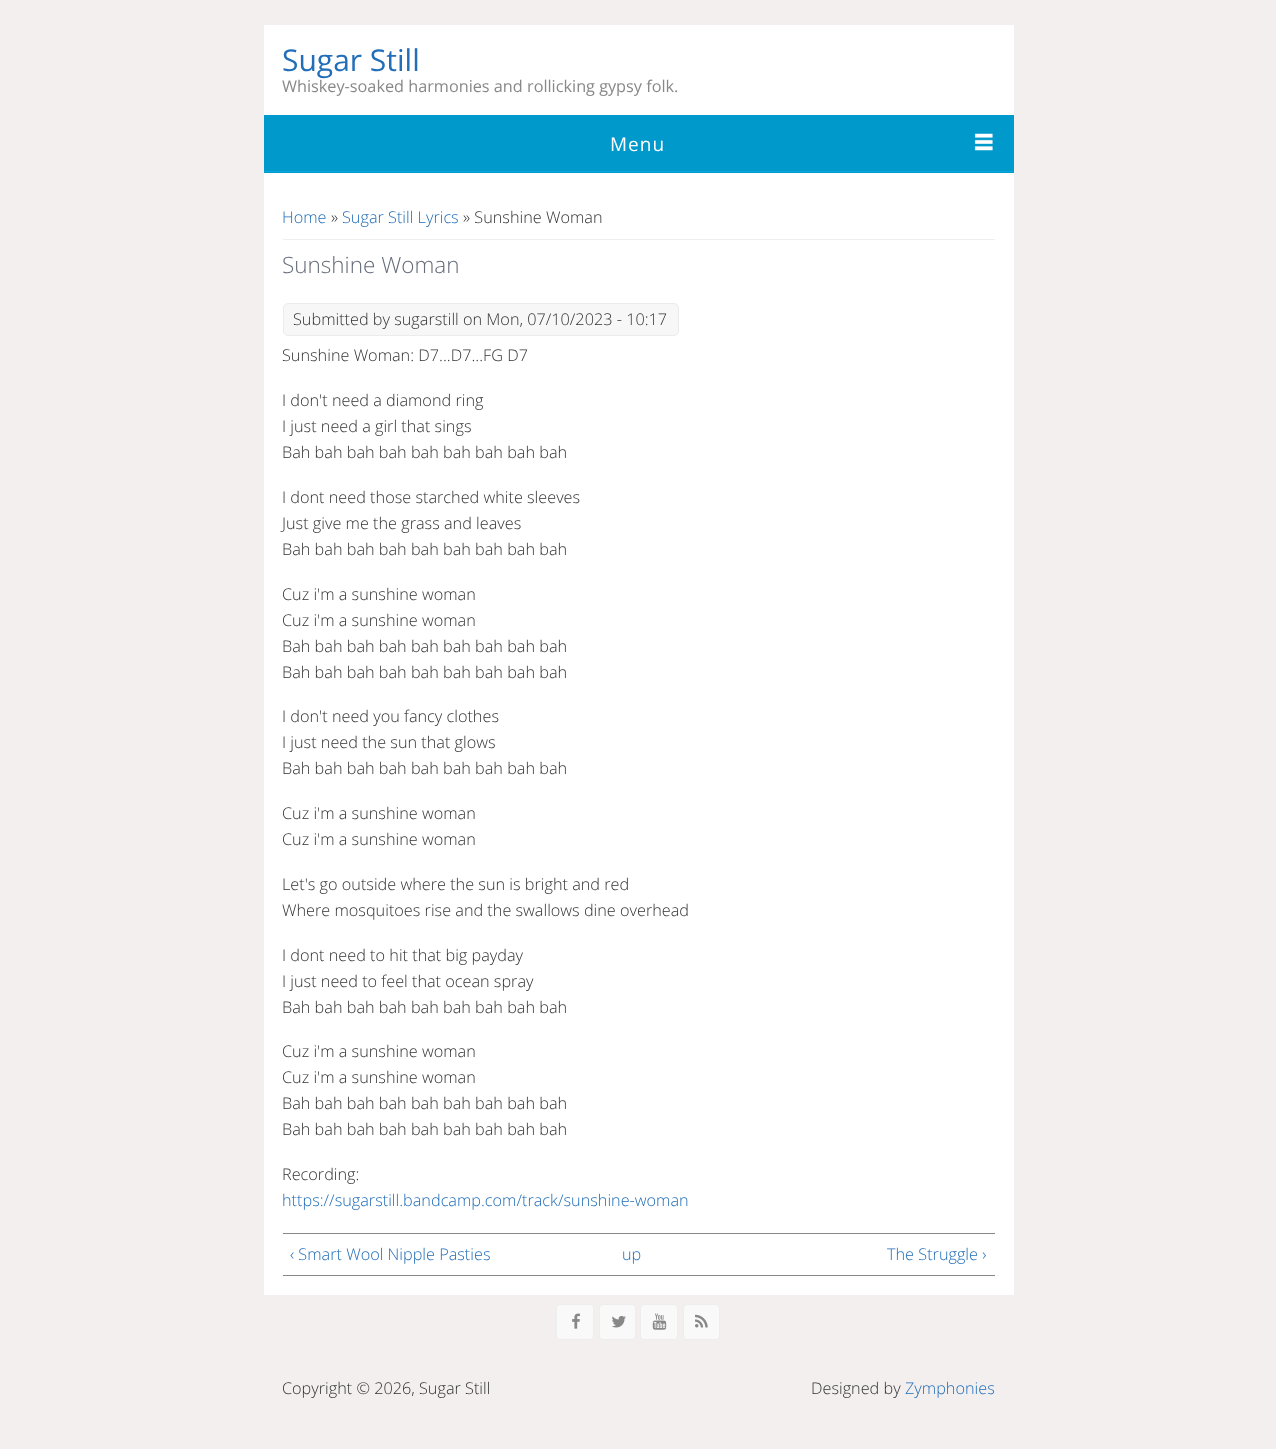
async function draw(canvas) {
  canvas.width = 1276
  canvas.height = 1449
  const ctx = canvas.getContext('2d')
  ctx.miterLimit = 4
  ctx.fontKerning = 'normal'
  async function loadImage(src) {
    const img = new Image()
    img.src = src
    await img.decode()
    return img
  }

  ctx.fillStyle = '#f3efef'
  ctx.fillRect(0, 0, 1276, 1449)
  ctx.fillStyle = '#fff'
  ctx.fillRect(264, 25, 750, 1270)
  ctx.font = '30px Open Sans'
  ctx.fillStyle = '#226eb8'
  ctx.fillText('Sugar Still', 282, 71)
  ctx.font = '16.25px Open Sans'
  ctx.fillStyle = '#888'
  ctx.fillText('Whiskey-soaked harmonies and rollicking gypsy folk.', 282, 92)
  ctx.fillStyle = '#09c'
  ctx.fillRect(264, 115, 750, 58)
  ctx.drawImage(await loadImage('image0.png'), 974, 133, 19, 18)
  ctx.fillStyle = '#06a7dd'
  ctx.fillRect(264, 171, 750, 1)
  ctx.letterSpacing = '1px'
  ctx.font = '19px Open Sans'
  ctx.fillStyle = '#fff'
  ctx.fillText('Menu', 610, 151)
  ctx.fillStyle = '#eee'
  ctx.fillRect(283, 239, 712, 1)
  ctx.letterSpacing = '0px'
  ctx.font = '300 16.25px Open Sans'
  ctx.fillStyle = '#226eb8'
  ctx.fillText('Home', 282, 223)
  ctx.fillStyle = '#333'
  ctx.fillText('»', 331, 223)
  ctx.fillStyle = '#226eb8'
  ctx.fillText('Sugar Still Lyrics', 342, 223)
  ctx.fillStyle = '#333'
  ctx.fillText('» Sunshine Woman', 463, 223)
  ctx.font = '300 22.5px Open Sans'
  ctx.fillStyle = '#646c7a'
  ctx.fillText('Sunshine Woman', 282, 273)
  ctx.fillStyle = '#f7f7f7'
  ctx.beginPath()
  ctx.roundRect(283.5, 303.5, 395, 32, 4.5)
  ctx.fill()
  ctx.strokeStyle = '#ececec'
  ctx.stroke()
  ctx.font = '300 16.25px Open Sans'
  ctx.fillStyle = '#333'
  ctx.fillText('Submitted by sugarstill on Mon, 07/10/2023 - 10:17', 293, 325)
  ctx.fillText('Sunshine Woman: D7...D7...FG D7', 282, 361)
  ctx.fillText('I don\'t need a diamond ring', 282, 406)
  ctx.fillText('I just need a girl that sings', 282, 432)
  ctx.fillText('Bah bah bah bah bah bah bah bah bah', 282, 458)
  ctx.fillText('I dont need those starched white sleeves', 282, 503)
  ctx.fillText('Just give me the grass and leaves', 282, 529)
  ctx.fillText('Bah bah bah bah bah bah bah bah bah', 282, 555)
  ctx.fillText('Cuz i\'m a sunshine woman', 282, 600)
  ctx.fillText('Cuz i\'m a sunshine woman', 282, 626)
  ctx.fillText('Bah bah bah bah bah bah bah bah bah', 282, 652)
  ctx.fillText('Bah bah bah bah bah bah bah bah bah', 282, 678)
  ctx.fillText('I don\'t need you fancy clothes', 282, 722)
  ctx.fillText('I just need the sun that glows', 282, 748)
  ctx.fillText('Bah bah bah bah bah bah bah bah bah', 282, 774)
  ctx.fillText('Cuz i\'m a sunshine woman', 282, 819)
  ctx.fillText('Cuz i\'m a sunshine woman', 282, 845)
  ctx.fillText('Let\'s go outside where the sun is bright and red', 282, 890)
  ctx.fillText('Where mosquitoes rise and the swallows dine overhead', 282, 916)
  ctx.fillText('I dont need to hit that big payday', 282, 961)
  ctx.fillText('I just need to feel that ocean spray', 282, 987)
  ctx.fillText('Bah bah bah bah bah bah bah bah bah', 282, 1013)
  ctx.fillText('Cuz i\'m a sunshine woman', 282, 1057)
  ctx.fillText('Cuz i\'m a sunshine woman', 282, 1083)
  ctx.fillText('Bah bah bah bah bah bah bah bah bah', 282, 1109)
  ctx.fillText('Bah bah bah bah bah bah bah bah bah', 282, 1135)
  ctx.fillText('Recording:', 282, 1180)
  ctx.fillStyle = '#226eb8'
  ctx.fillText('https://sugarstill.bandcamp.com/track/sunshine-woman', 282, 1206)
  ctx.fillStyle = '#888'
  ctx.fillRect(283, 1233, 712, 1)
  ctx.fillRect(283, 1275, 712, 1)
  ctx.fillStyle = '#226eb8'
  ctx.fillText('‹ Smart Wool Nipple Pasties', 290, 1260)
  ctx.fillText('up', 622, 1260)
  ctx.fillText('The Struggle ›', 887, 1260)
  ctx.fillStyle = '#f9f9f9'
  ctx.beginPath()
  ctx.roundRect(556.5, 1304.5, 37, 35, 3.5)
  ctx.fill()
  ctx.strokeStyle = '#eee'
  ctx.stroke()
  ctx.drawImage(await loadImage('image1.png'), 572, 1313, 8, 16)
  ctx.beginPath()
  ctx.roundRect(599.5, 1304.5, 36, 35, 3.5)
  ctx.fill()
  ctx.stroke()
  ctx.drawImage(await loadImage('image2.png'), 612, 1315, 14, 13)
  ctx.beginPath()
  ctx.roundRect(640.5, 1304.5, 37, 35, 3.5)
  ctx.fill()
  ctx.stroke()
  ctx.drawImage(await loadImage('image3.png'), 652, 1313, 15, 17)
  ctx.beginPath()
  ctx.roundRect(683.5, 1304.5, 36, 35, 3.5)
  ctx.fill()
  ctx.stroke()
  ctx.drawImage(await loadImage('image4.png'), 695, 1314, 13, 14)
  ctx.fillStyle = '#333'
  ctx.fillText('Copyright © 2026, Sugar Still', 282, 1394)
  ctx.fillText('Designed by', 811, 1394)
  ctx.fillStyle = '#226eb8'
  ctx.fillText('Zymphonies', 905, 1394)
}

draw(document.querySelector('canvas'))
